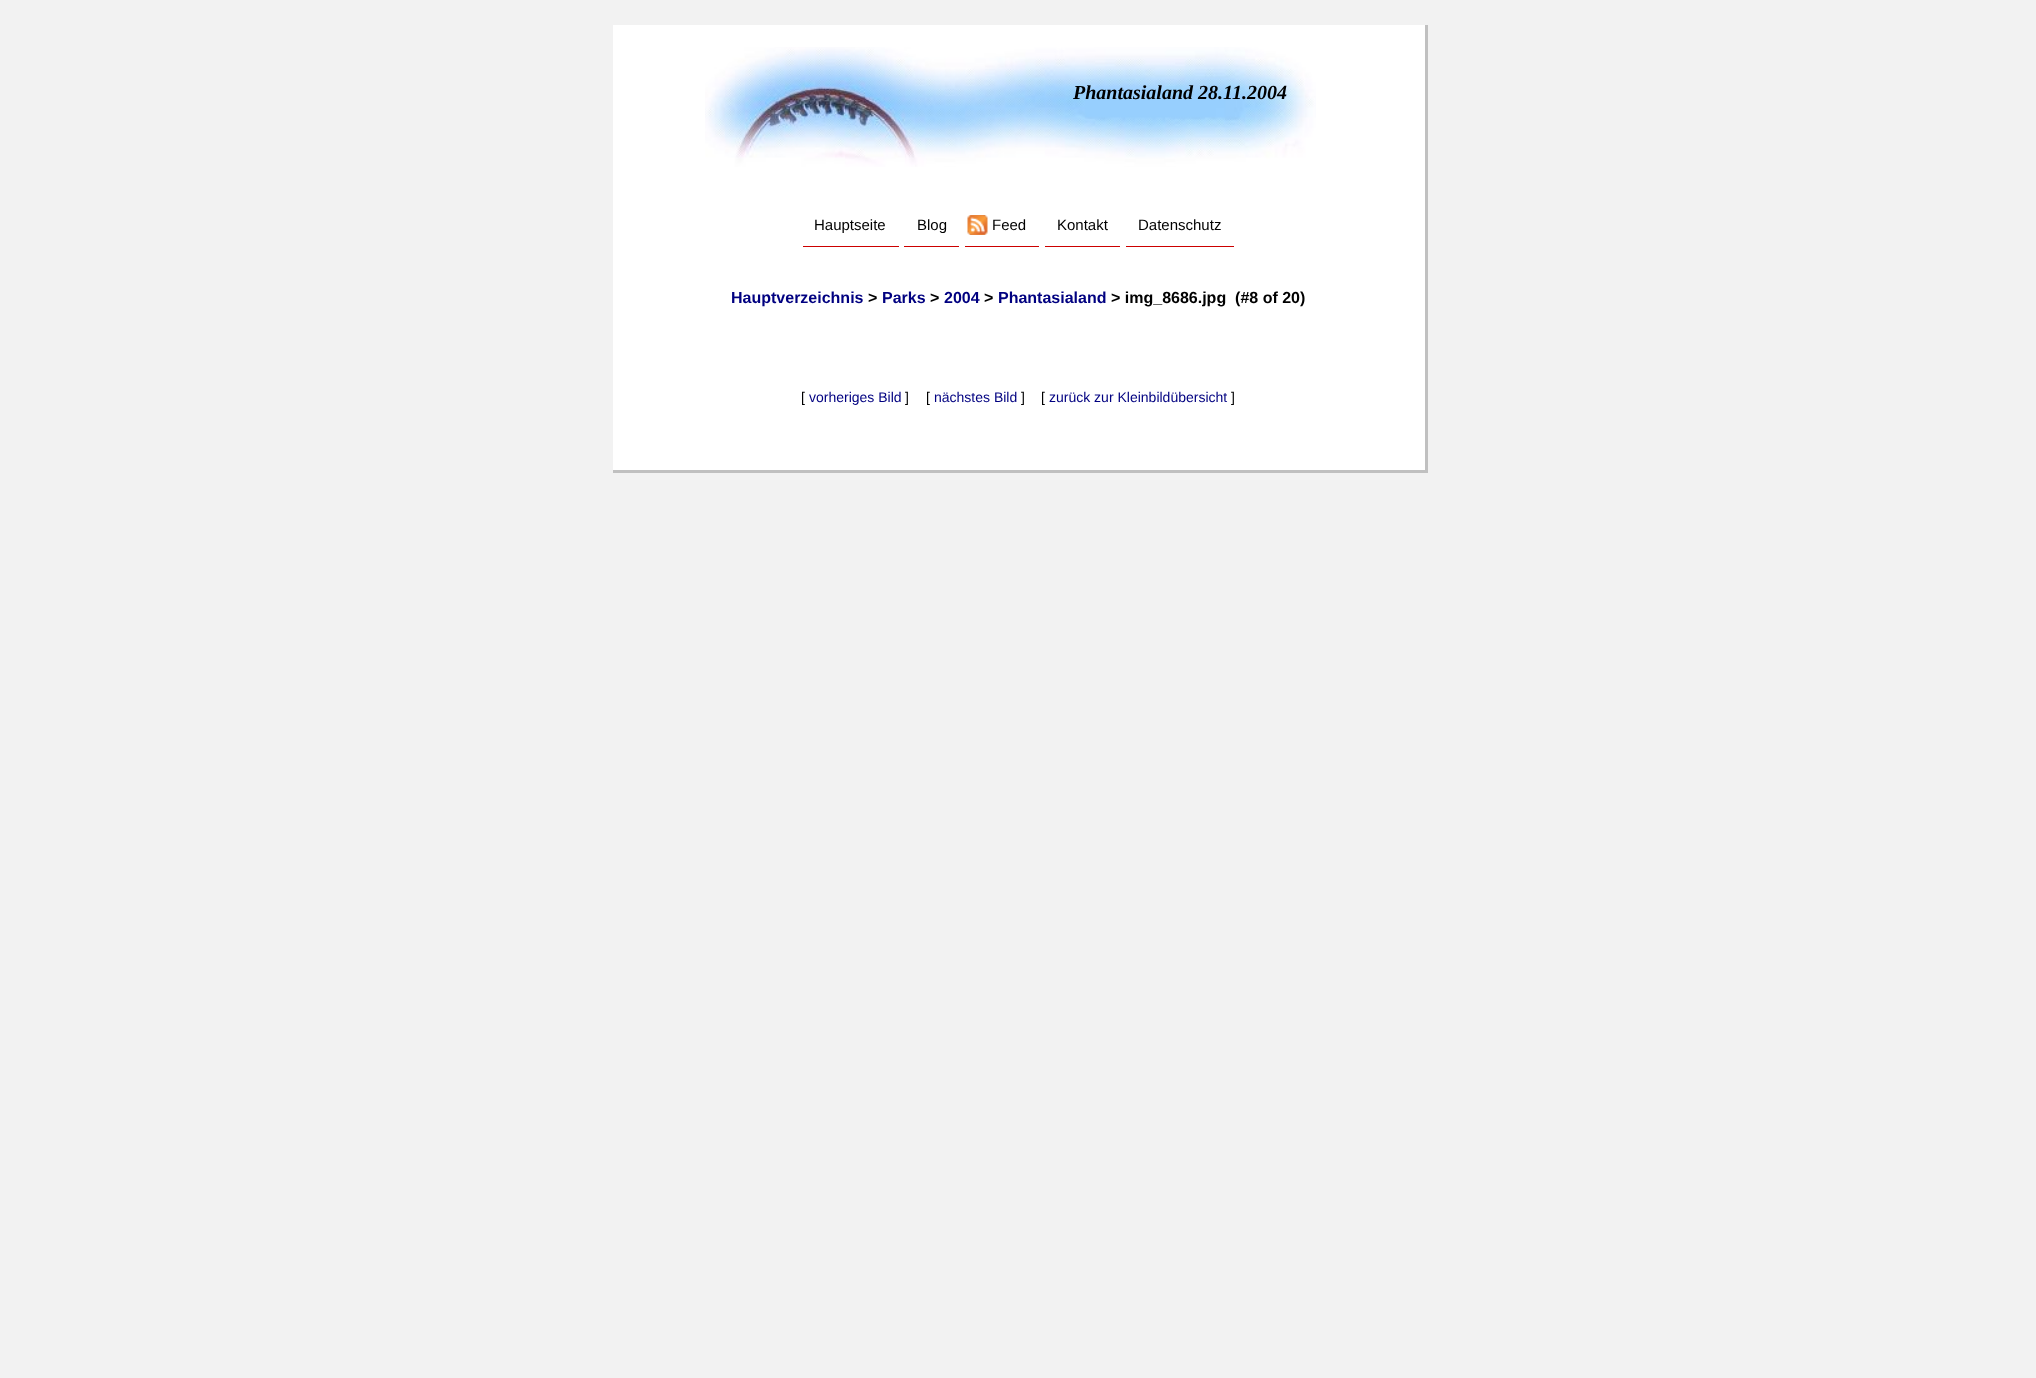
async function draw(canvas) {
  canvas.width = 2036
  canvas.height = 1378
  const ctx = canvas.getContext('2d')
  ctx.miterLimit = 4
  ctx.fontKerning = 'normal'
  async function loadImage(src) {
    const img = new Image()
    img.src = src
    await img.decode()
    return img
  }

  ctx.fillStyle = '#f2f2f2'
  ctx.fillRect(0, 0, 2036, 1378)
  ctx.fillStyle = '#fff'
  ctx.fillRect(613, 25, 812, 445)
  ctx.fillStyle = '#c0c0c0'
  ctx.fillRect(1425, 25, 3, 448)
  ctx.fillRect(613, 470, 815, 3)
  ctx.drawImage(await loadImage('image0.png'), 705, 47, 611, 120)
  ctx.font = 'italic bold 20px Liberation Serif'
  ctx.fillStyle = '#000'
  ctx.fillText('Phantasialand 28.11.2004', 1073, 99)
  ctx.font = '15px Liberation Sans'
  ctx.fillText('Hauptseite', 814, 230)
  ctx.fillStyle = '#c00'
  ctx.fillRect(803, 246, 96, 1)
  ctx.fillStyle = '#000'
  ctx.fillText('Blog', 917, 230)
  ctx.fillStyle = '#c00'
  ctx.fillRect(904, 246, 55, 1)
  ctx.drawImage(await loadImage('image1.png'), 967, 215, 21, 20)
  ctx.fillStyle = '#000'
  ctx.fillText('Feed', 992, 230)
  ctx.fillStyle = '#c00'
  ctx.fillRect(965, 246, 74, 1)
  ctx.fillStyle = '#000'
  ctx.fillText('Kontakt', 1057, 230)
  ctx.fillStyle = '#c00'
  ctx.fillRect(1045, 246, 75, 1)
  ctx.fillStyle = '#000'
  ctx.fillText('Datenschutz', 1138, 230)
  ctx.fillStyle = '#c00'
  ctx.fillRect(1126, 246, 108, 1)
  ctx.font = 'bold 16px Liberation Sans'
  ctx.fillStyle = '#000080'
  ctx.fillText('Hauptverzeichnis', 731, 303)
  ctx.fillStyle = '#000'
  ctx.fillText('>', 868, 303)
  ctx.fillStyle = '#000080'
  ctx.fillText('Parks', 882, 303)
  ctx.fillStyle = '#000'
  ctx.fillText('>', 930, 303)
  ctx.fillStyle = '#000080'
  ctx.fillText('2004', 944, 303)
  ctx.fillStyle = '#000'
  ctx.fillText('>', 984, 303)
  ctx.fillStyle = '#000080'
  ctx.fillText('Phantasialand', 998, 303)
  ctx.fillStyle = '#000'
  ctx.fillText('> img_8686.jpg  (#8 of 20)', 1111, 303)
  ctx.font = '14px Liberation Sans'
  ctx.fillText('[', 801, 402)
  ctx.fillStyle = '#000080'
  ctx.fillText('vorheriges Bild', 809, 402)
  ctx.fillStyle = '#000'
  ctx.fillText(']', 905, 402)
  ctx.fillText('[', 926, 402)
  ctx.fillStyle = '#000080'
  ctx.fillText('nächstes Bild', 934, 402)
  ctx.fillStyle = '#000'
  ctx.fillText(']', 1021, 402)
  ctx.fillText('[', 1041, 402)
  ctx.fillStyle = '#000080'
  ctx.fillText('zurück zur Kleinbildübersicht', 1049, 402)
  ctx.fillStyle = '#000'
  ctx.fillText(']', 1231, 402)
}

draw(document.querySelector('canvas'))
